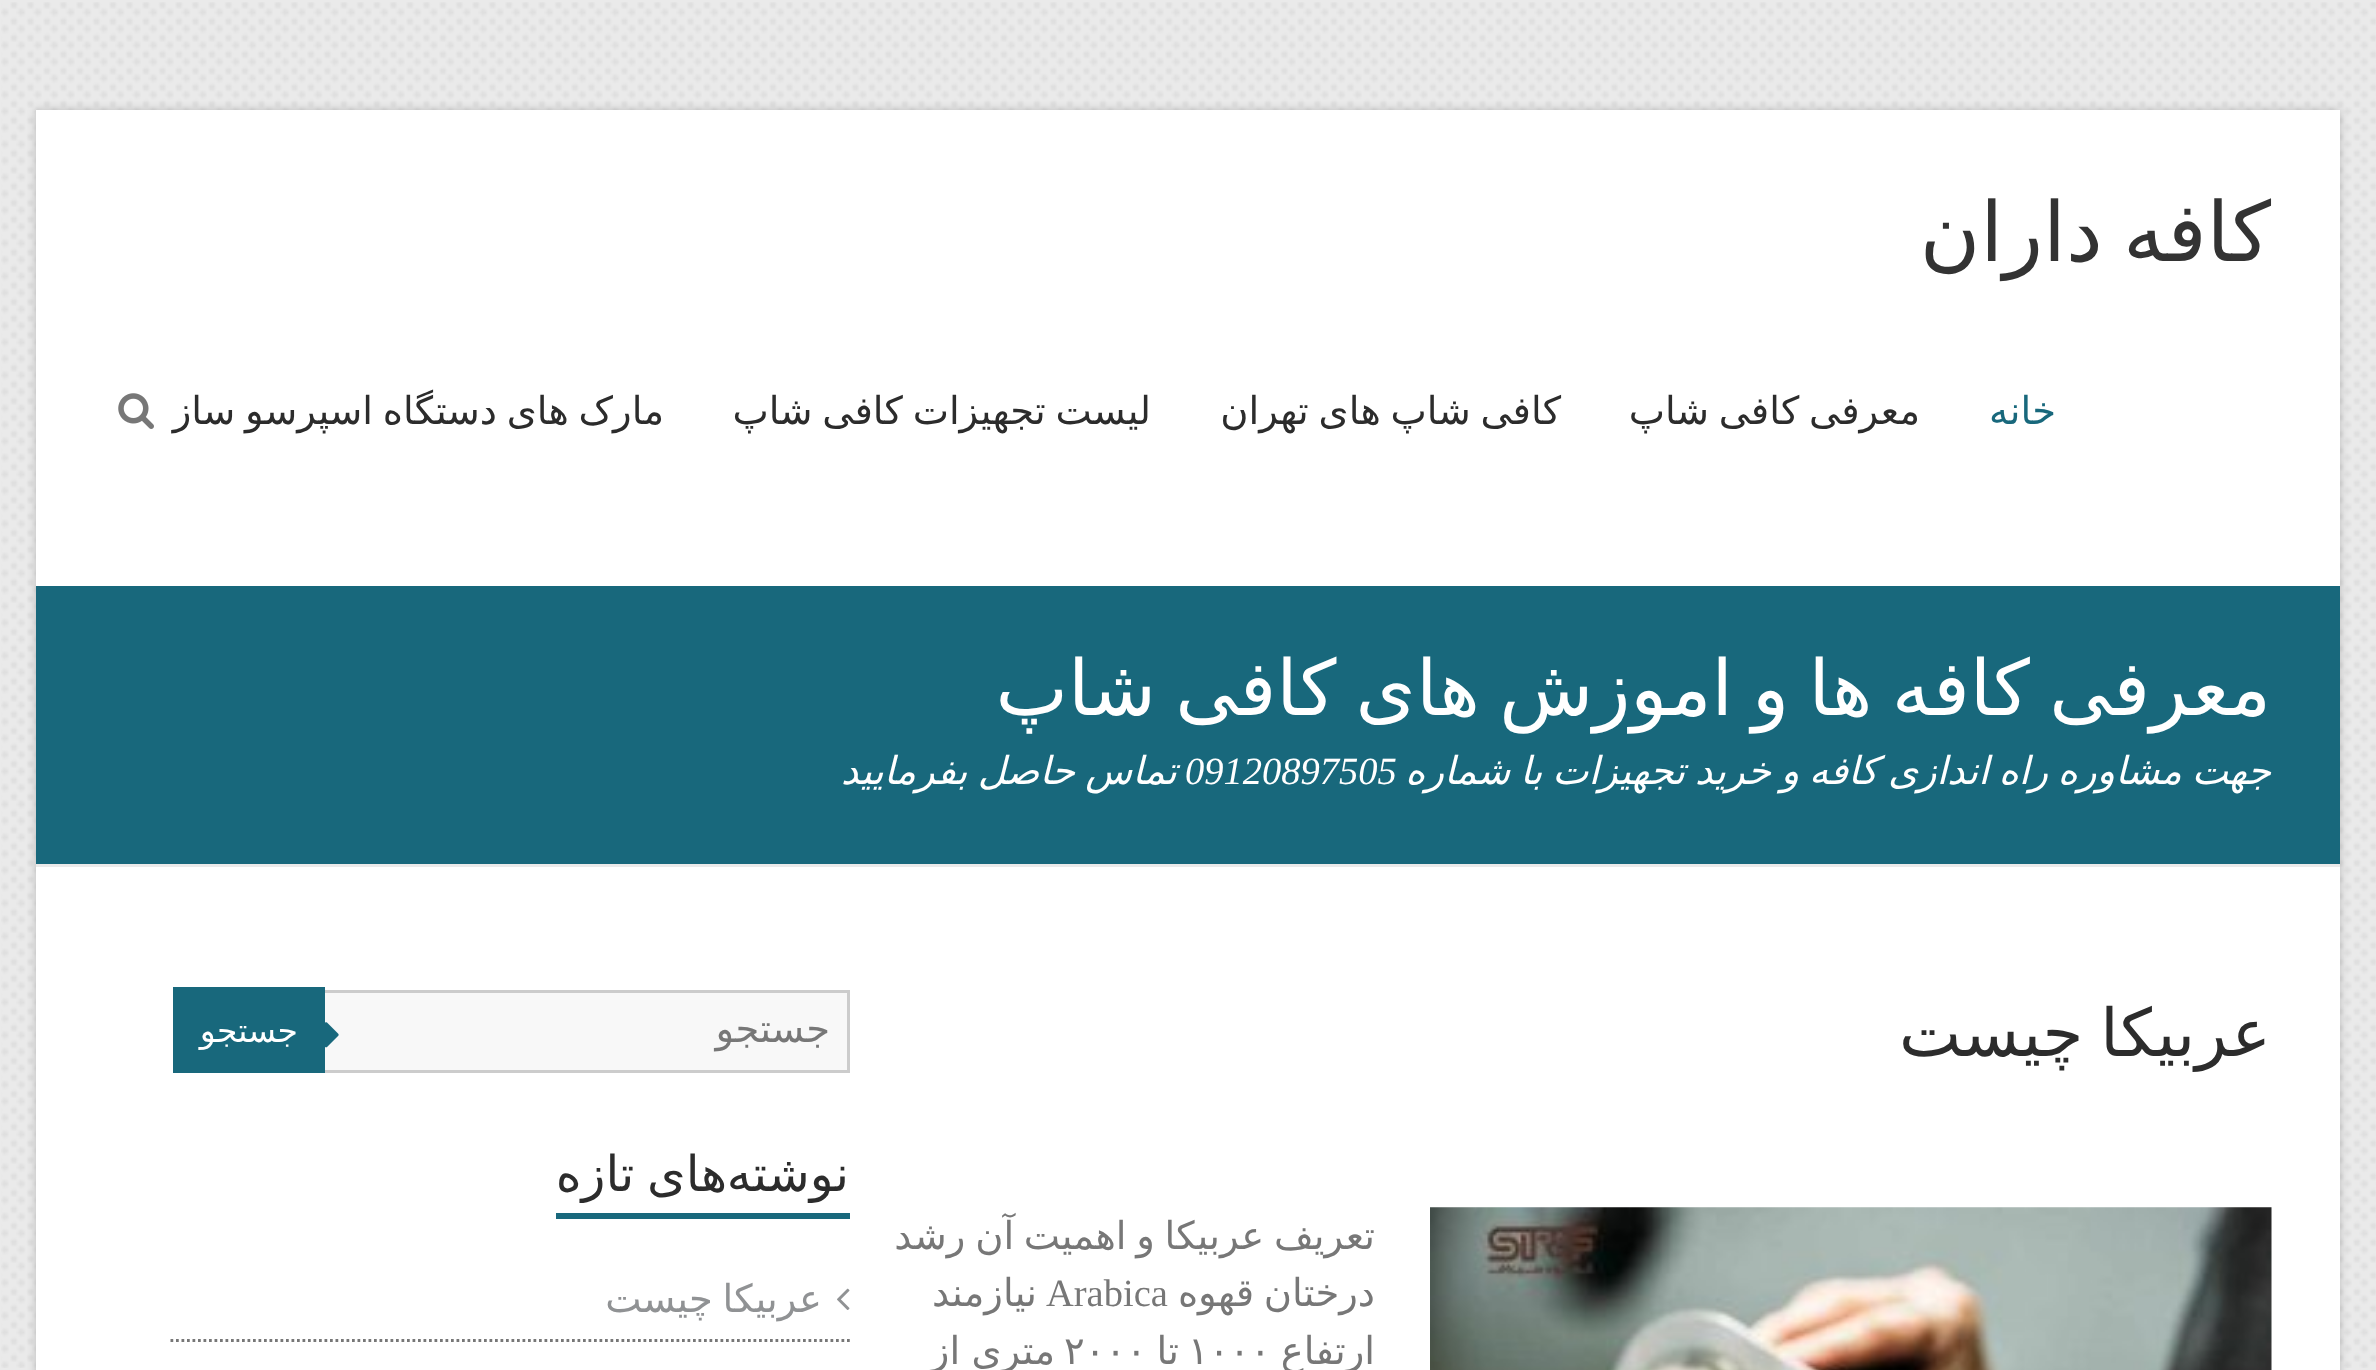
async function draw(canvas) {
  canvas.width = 2376
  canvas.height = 1370
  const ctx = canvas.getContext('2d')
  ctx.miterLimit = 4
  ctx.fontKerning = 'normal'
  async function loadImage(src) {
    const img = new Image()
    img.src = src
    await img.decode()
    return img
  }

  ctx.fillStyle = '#eaeaea'
  ctx.fillRect(0, 0, 2376, 1370)
  ctx.drawImage(await loadImage('image0.png'), 1, 2, 2375, 1366)
  ctx.fillStyle = '#00000033'
  ctx.filter = 'blur(4px)'
  ctx.beginPath()
  ctx.rect(36, 110, 2304, 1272)
  ctx.fill()
  ctx.filter = 'none'
  ctx.fillStyle = '#fff'
  ctx.fillRect(36, 110, 2304, 1260)
  ctx.fillStyle = '#eaeaea'
  ctx.fillRect(36, 864, 2304, 3)
  ctx.wordSpacing = '-6px'
  ctx.direction = 'rtl'
  ctx.font = '82.5px DejaVu Sans'
  ctx.fillStyle = '#333'
  ctx.fillText('کافه داران', 2271, 261)
  ctx.wordSpacing = '0px'
  ctx.font = '38.5px DejaVu Sans'
  ctx.fillStyle = '#18687c'
  ctx.fillText('خانه', 2056, 424)
  ctx.wordSpacing = '-2.5px'
  ctx.fillStyle = '#2c2c2c'
  ctx.fillText('معرفی کافی شاپ', 1920, 424)
  ctx.fillText('کافی شاپ های تهران', 1561, 424)
  ctx.fillText('لیست تجهیزات کافی شاپ', 1151, 424)
  ctx.fillText('مارک های دستگاه اسپرسو ساز', 664, 424)
  ctx.drawImage(await loadImage('image1.png'), 118, 393, 36, 36)
  ctx.fillStyle = '#18687c'
  ctx.fillRect(36, 586, 2304, 278)
  ctx.wordSpacing = '-5.25px'
  ctx.font = '77px DejaVu Sans'
  ctx.fillStyle = '#fff'
  ctx.fillText('معرفی کافه ها و اموزش های کافی شاپ', 2271, 715)
  ctx.wordSpacing = '-2.5px'
  ctx.font = 'italic 38.5px DejaVu Sans'
  ctx.fillText('جهت مشاوره راه اندازی کافه و خرید تجهیزات با شماره', 2271, 784)
  ctx.wordSpacing = '0px'
  ctx.direction = 'ltr'
  ctx.font = 'italic 38.5px Liberation Serif'
  ctx.fillText('09120897505', 1185, 784)
  ctx.wordSpacing = '-2px'
  ctx.direction = 'rtl'
  ctx.font = 'italic 38.5px DejaVu Sans'
  ctx.fillText('تماس حاصل بفرمایید', 1177, 784)
  ctx.wordSpacing = '-4px'
  ctx.font = '66px DejaVu Sans'
  ctx.fillStyle = '#2c2c2c'
  ctx.fillText('عربیکا چیست', 2271, 1056)
  ctx.drawImage(await loadImage('image2.png'), 1430, 1207, 842, 163)
  ctx.wordSpacing = '-2.5px'
  ctx.font = '38.5px DejaVu Sans'
  ctx.fillStyle = '#777'
  ctx.fillText('تعریف عربیکا و اهمیت آن رشد', 1375, 1249)
  ctx.fillText('درختان قهوه', 1375, 1306)
  ctx.wordSpacing = '0px'
  ctx.direction = 'ltr'
  ctx.font = '38.5px Liberation Serif'
  ctx.fillText('Arabica', 1046, 1306)
  ctx.direction = 'rtl'
  ctx.font = '38.5px DejaVu Sans'
  ctx.fillText('نیازمند', 1037, 1306)
  ctx.fillText('ارتفاع', 1375, 1364)
  ctx.direction = 'ltr'
  ctx.fillText('۱۰۰۰', 1188, 1364)
  ctx.direction = 'rtl'
  ctx.fillText('تا', 1179, 1364)
  ctx.direction = 'ltr'
  ctx.fillText('۲۰۰۰', 1064, 1364)
  ctx.wordSpacing = '-1px'
  ctx.direction = 'rtl'
  ctx.fillText('متری از', 1055, 1364)
  ctx.fillStyle = '#f8f8f8'
  ctx.beginPath()
  ctx.rect(323.5, 991.5, 525, 80)
  ctx.fill()
  ctx.strokeStyle = '#ccc'
  ctx.lineWidth = 3
  ctx.stroke()
  ctx.wordSpacing = '0px'
  ctx.fillStyle = '#777'
  ctx.fillText('جستجو', 830, 1042)
  ctx.fillStyle = '#18687c'
  ctx.fillRect(173, 987, 152, 86)
  ctx.drawImage(await loadImage('image3.png'), 325, 1022, 14, 26)
  ctx.font = '33px DejaVu Sans'
  ctx.fillStyle = '#fff'
  ctx.fillText('جستجو', 298, 1042)
  ctx.font = '49.5px DejaVu Sans'
  ctx.fillStyle = '#2c2c2c'
  ctx.fillText('نوشته', 849, 1191)
  ctx.fillStyle = '#18687c'
  ctx.fillRect(556, 1213, 294, 6)
  ctx.wordSpacing = '-3px'
  ctx.fillStyle = '#2c2c2c'
  ctx.fillText('های تازه', 727, 1191)
  ctx.beginPath()
  ctx.moveTo(170.5, 1340.5)
  ctx.lineTo(850, 1340.5)
  ctx.strokeStyle = '#777'
  ctx.lineWidth = 2.8
  ctx.setLineDash([2.75, 2.75])
  ctx.stroke()
  ctx.drawImage(await loadImage('image4.png'), 837, 1288, 13, 22)
  ctx.wordSpacing = '-2.5px'
  ctx.font = '38.5px DejaVu Sans'
  ctx.fillStyle = '#909294'
  ctx.fillText('عربیکا چیست', 822, 1312)
}

draw(document.querySelector('canvas'))
